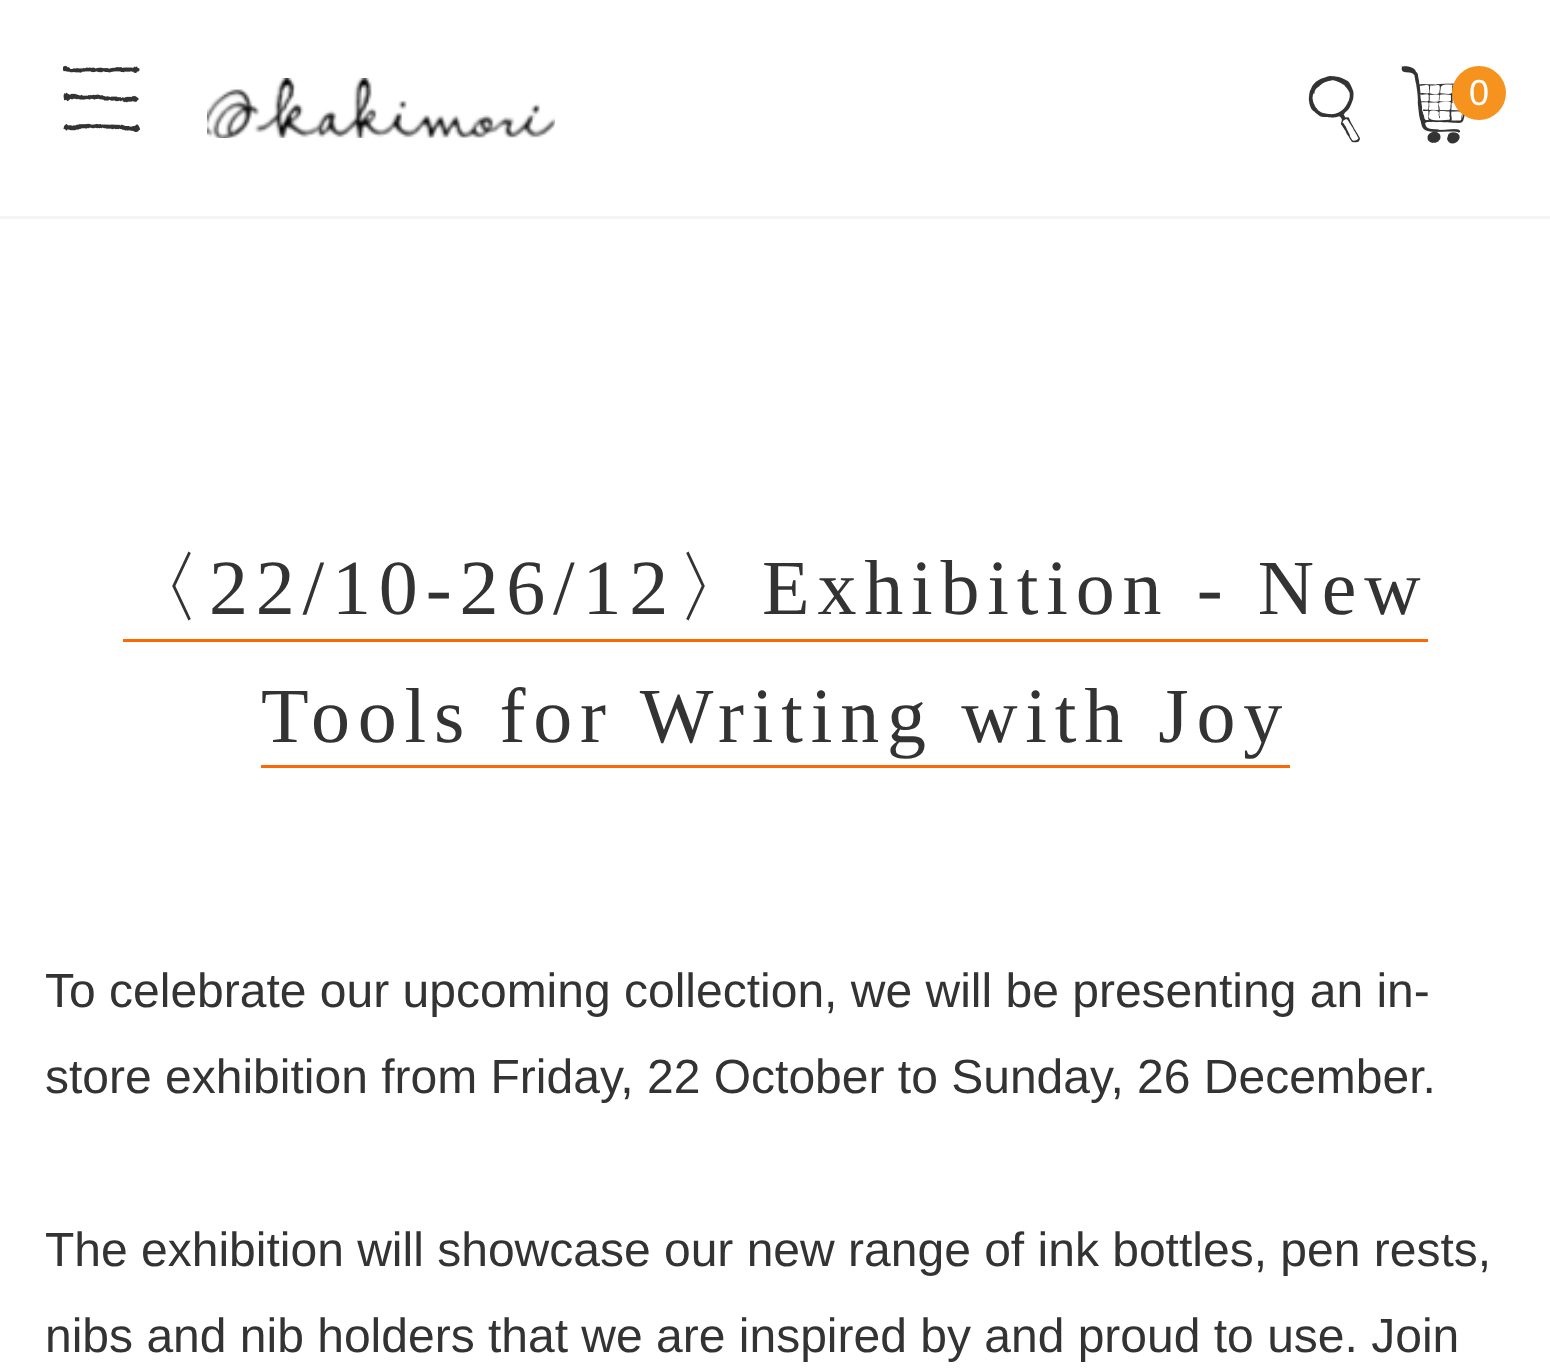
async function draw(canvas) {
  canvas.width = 1550
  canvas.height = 1370
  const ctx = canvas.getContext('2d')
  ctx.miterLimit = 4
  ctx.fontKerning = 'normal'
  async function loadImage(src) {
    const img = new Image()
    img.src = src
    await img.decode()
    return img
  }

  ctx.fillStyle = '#fff'
  ctx.fillRect(0, 0, 1550, 1370)
  ctx.fillStyle = '#f4f4f4'
  ctx.fillRect(0, 216, 1550, 3)
  ctx.drawImage(await loadImage('image0.png'), 63, 65, 78, 68)
  ctx.drawImage(await loadImage('image1.png'), 207, 78, 348, 60)
  ctx.drawImage(await loadImage('image2.png'), 1308, 75, 52, 68)
  ctx.drawImage(await loadImage('image3.png'), 1401, 66, 64, 78)
  ctx.fillStyle = '#f6921e'
  ctx.beginPath()
  ctx.arc(1479, 93, 27, 0, 2 * Math.PI)
  ctx.fill()
  ctx.font = '36px Liberation Sans'
  ctx.fillStyle = '#fff'
  ctx.fillText('0', 1469, 105)
  ctx.letterSpacing = '7.8px'
  ctx.font = '500 78px WenQuanYi Zen Hei'
  ctx.fillStyle = '#333'
  ctx.fillText('〈', 123, 614)
  ctx.font = '78px Liberation Serif'
  ctx.fillText('22/10-26/12', 209, 614)
  ctx.fillStyle = '#ff6800'
  ctx.fillRect(123, 639, 1305, 3)
  ctx.font = '500 78px WenQuanYi Zen Hei'
  ctx.fillStyle = '#333'
  ctx.fillText('〉', 676, 614)
  ctx.font = '78px Liberation Serif'
  ctx.fillText('Exhibition - New', 762, 614)
  ctx.fillText('Tools for Writing with Joy', 261, 742)
  ctx.fillStyle = '#ff6800'
  ctx.fillRect(261, 765, 1029, 3)
  ctx.letterSpacing = '0px'
  ctx.font = '48px Liberation Sans'
  ctx.fillStyle = '#333'
  ctx.fillText('To celebrate our upcoming collection, we will be presenting an in-', 45, 1007)
  ctx.fillText('store exhibition from Friday, 22 October to Sunday, 26 December.', 45, 1093)
  ctx.fillText('The exhibition will showcase our new range of ink bottles, pen rests,', 45, 1266)
  ctx.fillText('nibs and nib holders that we are inspired by and proud to use. Join', 45, 1352)
}

draw(document.querySelector('canvas'))
